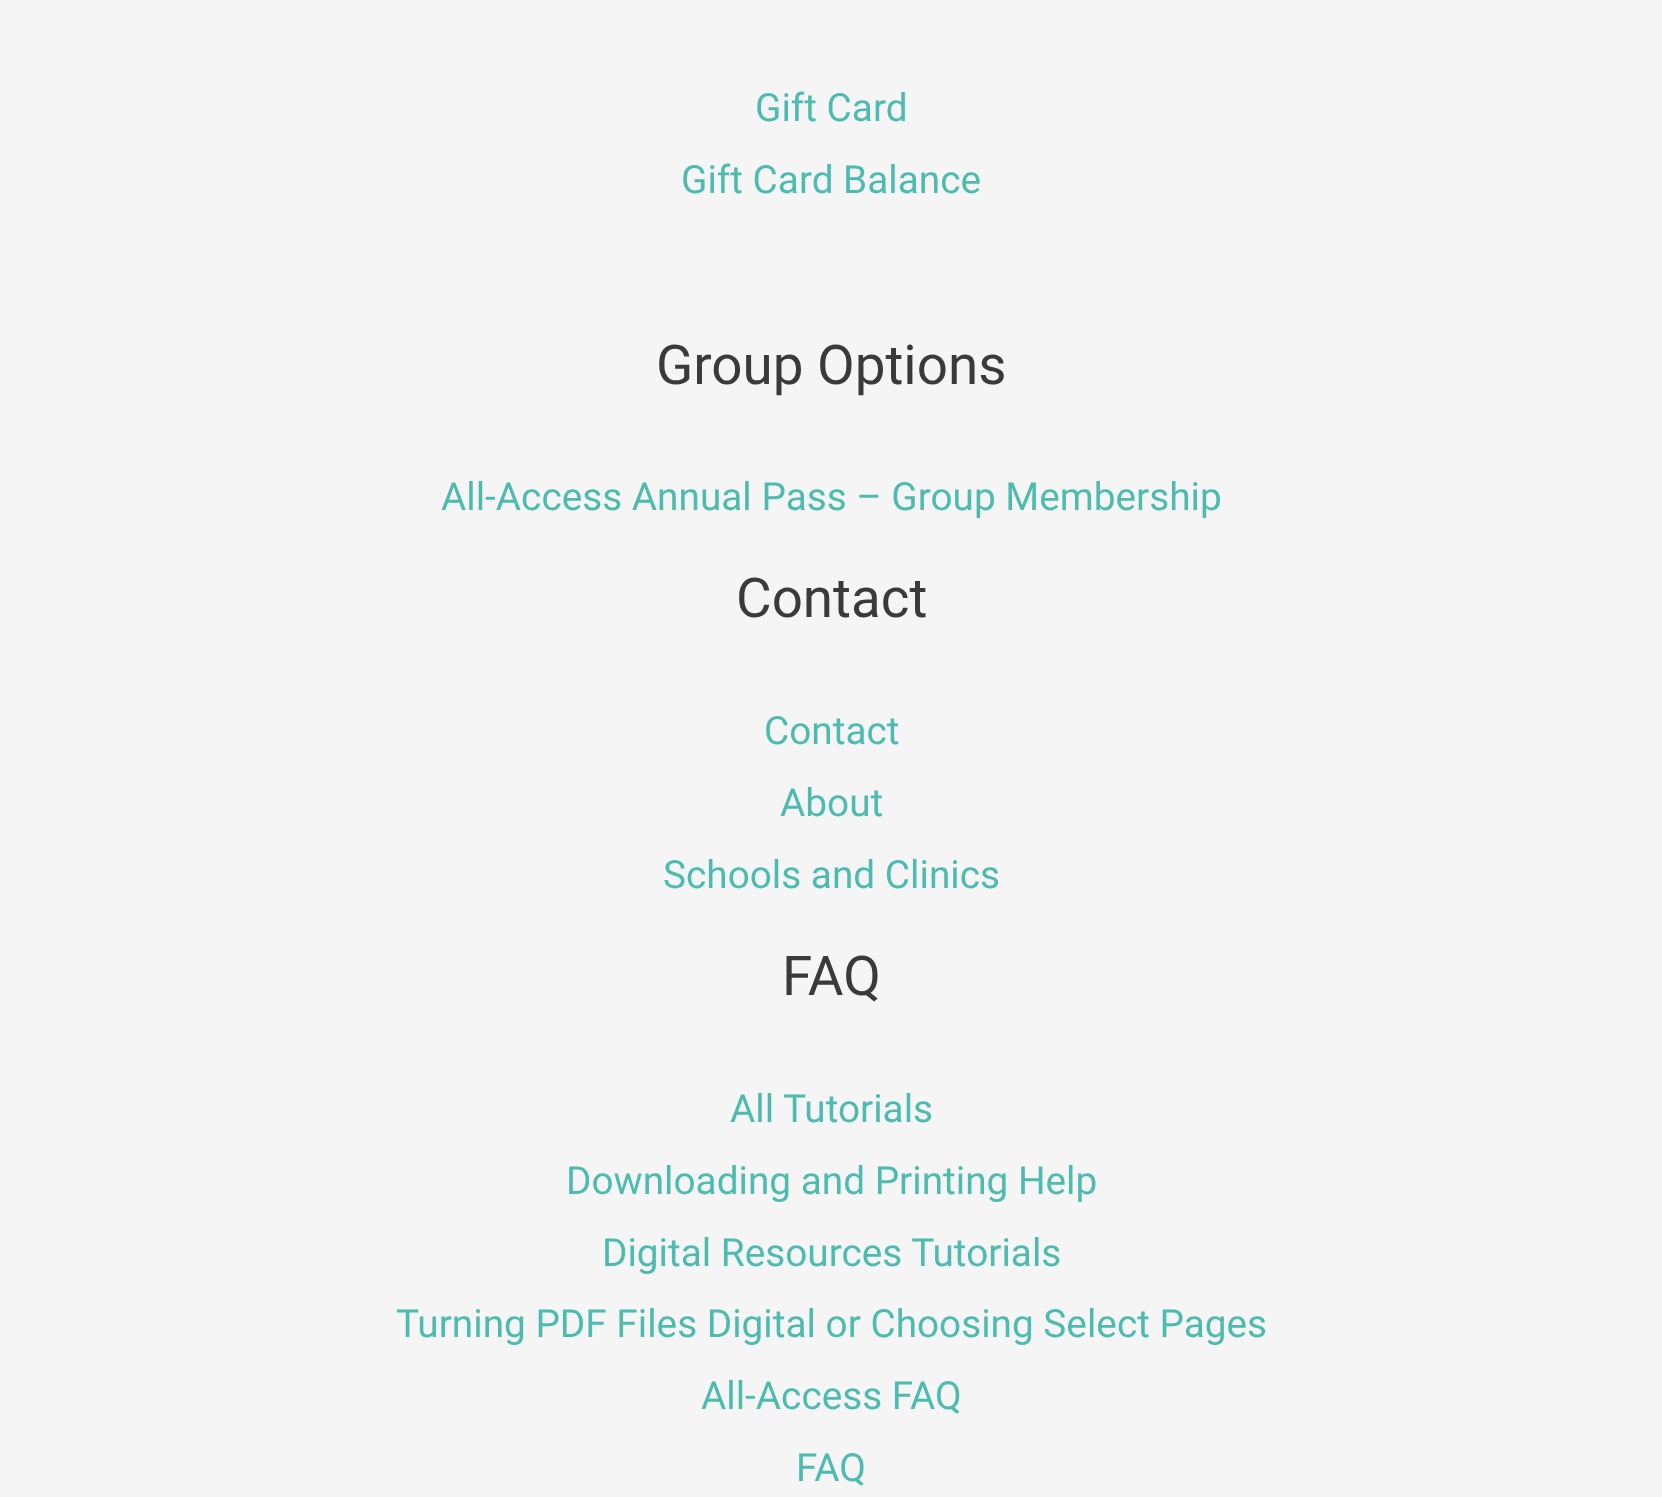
async function draw(canvas) {
  canvas.width = 1662
  canvas.height = 1497
  const ctx = canvas.getContext('2d')
  ctx.miterLimit = 4
  ctx.fontKerning = 'normal'

  ctx.fillStyle = '#f5f5f5'
  ctx.fillRect(0, 0, 1662, 1497)
  ctx.font = '38.75px Roboto'
  ctx.fillStyle = '#4dbbb0'
  ctx.fillText('Gift Card', 755, 121)
  ctx.fillText('Gift Card Balance', 681, 193)
  ctx.font = '54.75px Roboto'
  ctx.fillStyle = '#3a3a3a'
  ctx.fillText('Group Options', 656, 384)
  ctx.font = '38.75px Roboto'
  ctx.fillStyle = '#4dbbb0'
  ctx.fillText('All-Access Annual Pass – Group Membership', 441, 510)
  ctx.font = '54.75px Roboto'
  ctx.fillStyle = '#3a3a3a'
  ctx.fillText('Contact', 736, 617)
  ctx.font = '38.75px Roboto'
  ctx.fillStyle = '#4dbbb0'
  ctx.fillText('Contact', 764, 744)
  ctx.fillText('About', 780, 816)
  ctx.fillText('Schools and Clinics', 663, 888)
  ctx.font = '54.75px Roboto'
  ctx.fillStyle = '#3a3a3a'
  ctx.fillText('FAQ', 782, 995)
  ctx.font = '38.75px Roboto'
  ctx.fillStyle = '#4dbbb0'
  ctx.fillText('All Tutorials', 730, 1122)
  ctx.fillText('Downloading and Printing Help', 566, 1194)
  ctx.fillText('Digital Resources Tutorials', 602, 1266)
  ctx.fillText('Turning PDF Files Digital or Choosing Select Pages', 396, 1337)
  ctx.fillText('All-Access FAQ', 701, 1409)
  ctx.fillText('FAQ', 796, 1481)
}

draw(document.querySelector('canvas'))
